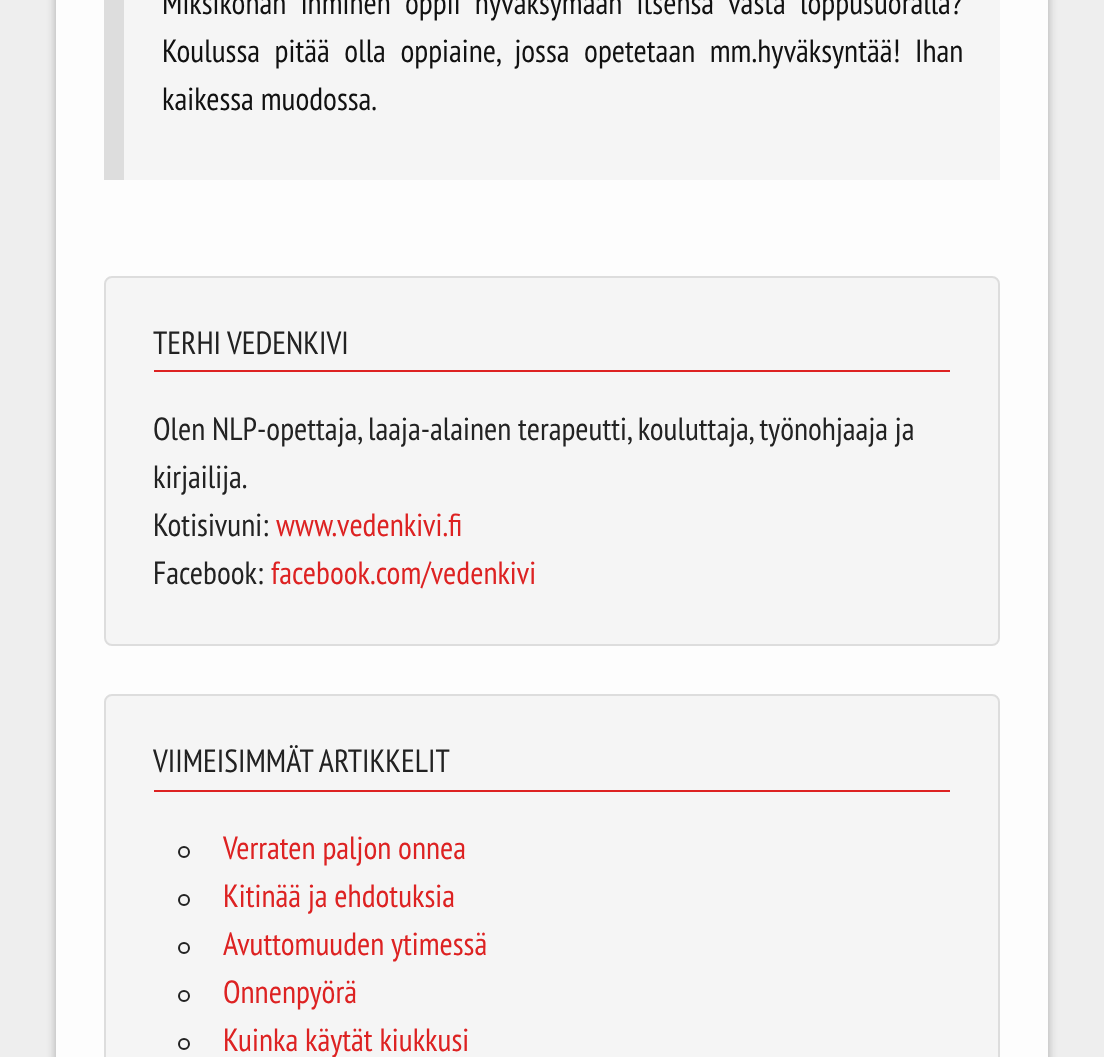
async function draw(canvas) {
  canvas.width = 1104
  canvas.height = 1057
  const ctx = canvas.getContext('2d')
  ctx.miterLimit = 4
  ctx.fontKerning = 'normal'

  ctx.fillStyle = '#eee'
  ctx.fillRect(0, 0, 1104, 1057)
  ctx.fillStyle = '#aaa'
  ctx.filter = 'blur(5px)'
  ctx.beginPath()
  ctx.rect(56, -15, 992, 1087)
  ctx.fill()
  ctx.filter = 'none'
  ctx.fillStyle = '#fdfdfd'
  ctx.fillRect(56, 0, 992, 1057)
  ctx.fillStyle = '#f5f5f5'
  ctx.fillRect(124, 0, 876, 180)
  ctx.fillStyle = '#ddd'
  ctx.fillRect(104, 0, 20, 180)
  ctx.wordSpacing = '7.5px'
  ctx.font = '32px PT Sans Narrow'
  ctx.fillStyle = '#111'
  ctx.fillText('Miksiköhän ihminen oppii hyväksymään itsensä vasta loppusuoralla?', 162, 14)
  ctx.wordSpacing = '7.75px'
  ctx.fillText('Koulussa pitää olla oppiaine, jossa opetetaan mm.hyväksyntää! Ihan', 162, 62)
  ctx.wordSpacing = '0px'
  ctx.fillText('kaikessa muodossa.', 162, 110)
  ctx.fillStyle = '#f5f5f5'
  ctx.beginPath()
  ctx.roundRect(105, 277, 894, 368, 7)
  ctx.fill()
  ctx.strokeStyle = '#ddd'
  ctx.lineWidth = 2
  ctx.stroke()
  ctx.fillStyle = '#d22'
  ctx.fillRect(154, 370, 796, 2)
  ctx.fillStyle = '#222'
  ctx.fillText('TERHI VEDENKIVI', 153, 354)
  ctx.fillText('Olen NLP-opettaja, laaja-alainen terapeutti, kouluttaja, työnohjaaja ja', 153, 440)
  ctx.fillText('kirjailija.', 153, 488)
  ctx.fillText('Kotisivuni:', 153, 536)
  ctx.fillStyle = '#d22'
  ctx.fillText('www.vedenkivi.fi', 276, 536)
  ctx.fillStyle = '#222'
  ctx.fillText('Facebook:', 153, 584)
  ctx.fillStyle = '#d22'
  ctx.fillText('facebook.com/vedenkivi', 271, 584)
  ctx.fillStyle = '#f5f5f5'
  ctx.beginPath()
  ctx.roundRect(105, 695, 894, 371, 7)
  ctx.fill()
  ctx.stroke()
  ctx.fillStyle = '#d22'
  ctx.fillRect(154, 790, 796, 2)
  ctx.fillStyle = '#222'
  ctx.fillText('VIIMEISIMMÄT ARTIKKELIT', 153, 772)
  ctx.beginPath()
  ctx.arc(184, 852, 5, 0, 2 * Math.PI)
  ctx.strokeStyle = '#222'
  ctx.stroke()
  ctx.fillStyle = '#d22'
  ctx.fillText('Verraten paljon onnea', 223, 859)
  ctx.beginPath()
  ctx.arc(184, 900, 5, 0, 2 * Math.PI)
  ctx.stroke()
  ctx.fillText('Kitinää ja ehdotuksia', 223, 907)
  ctx.beginPath()
  ctx.arc(184, 948, 5, 0, 2 * Math.PI)
  ctx.stroke()
  ctx.fillText('Avuttomuuden ytimessä', 223, 955)
  ctx.beginPath()
  ctx.arc(184, 996, 5, 0, 2 * Math.PI)
  ctx.stroke()
  ctx.fillText('Onnenpyörä', 223, 1003)
  ctx.beginPath()
  ctx.arc(184, 1044, 5, 0, 2 * Math.PI)
  ctx.stroke()
  ctx.fillText('Kuinka käytät kiukkusi', 223, 1051)
}

draw(document.querySelector('canvas'))
